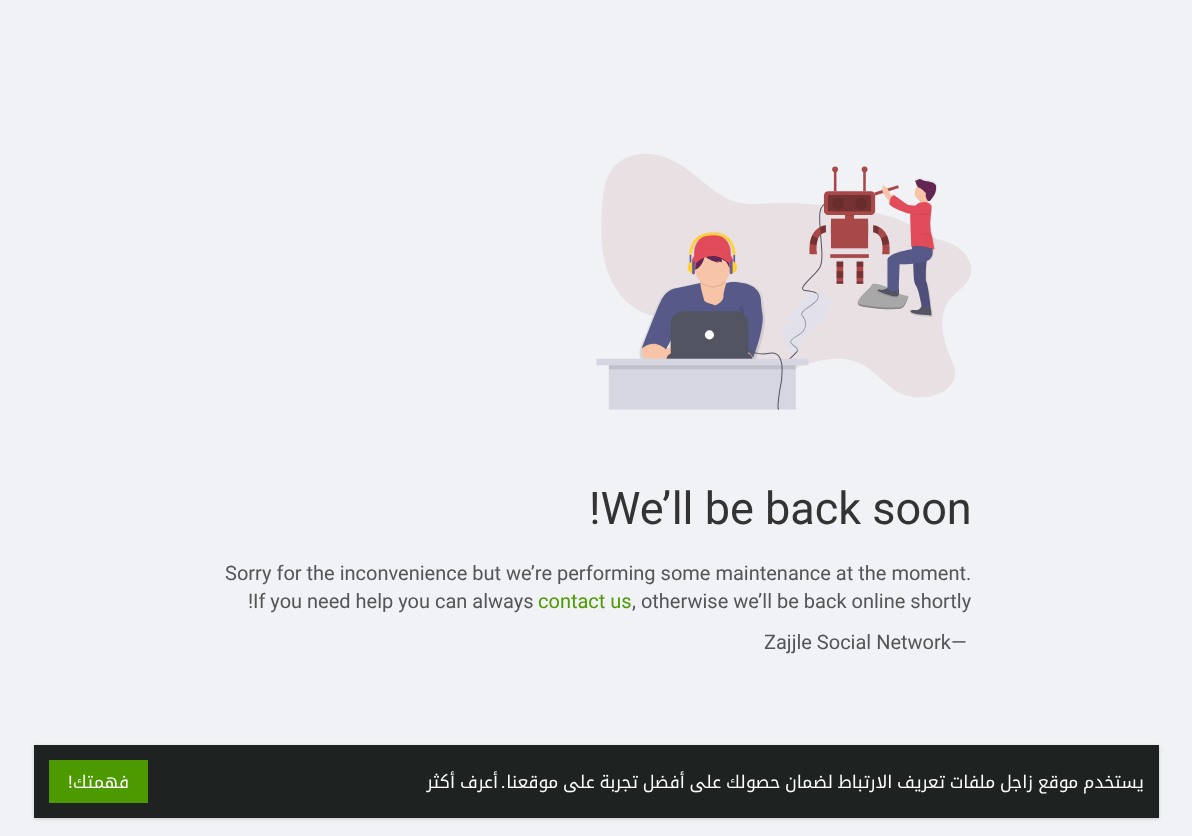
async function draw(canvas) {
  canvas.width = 1192
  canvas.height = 836
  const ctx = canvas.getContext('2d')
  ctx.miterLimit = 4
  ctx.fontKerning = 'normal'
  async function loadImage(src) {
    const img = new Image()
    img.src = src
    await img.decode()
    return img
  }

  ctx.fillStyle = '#f0f2f5'
  ctx.fillRect(0, 0, 1192, 836)
  ctx.drawImage(await loadImage('image0.png'), 596, 154, 375, 256)
  ctx.font = '45px Roboto'
  ctx.fillStyle = '#333'
  ctx.fillText('!We’ll be back soon', 589, 524)
  ctx.font = '20px Roboto'
  ctx.fillStyle = '#545556'
  ctx.fillText('Sorry for the inconvenience but we’re performing some maintenance at the moment.', 225, 580)
  ctx.fillText('!', 248, 608)
  ctx.fillText('If you need help you can always', 253, 608)
  ctx.fillStyle = '#4d9a00'
  ctx.fillText('contact us', 538, 608)
  ctx.fillStyle = '#545556'
  ctx.fillText(', otherwise we’ll be back online shortly', 632, 608)
  ctx.fillText('Zajjle Social Network—', 764, 649)
  ctx.fillStyle = '#0000000f'
  ctx.filter = 'blur(1px)'
  ctx.beginPath()
  ctx.rect(34, 746, 1125, 73)
  ctx.fill()
  ctx.filter = 'none'
  ctx.fillStyle = '#0000001a'
  ctx.filter = 'blur(2px)'
  ctx.beginPath()
  ctx.rect(34, 746, 1125, 73)
  ctx.fill()
  ctx.filter = 'none'
  ctx.fillStyle = '#1e2321'
  ctx.fillRect(34, 745, 1125, 73)
  ctx.fillStyle = '#4d9a00'
  ctx.fillRect(49, 760, 99, 43)
  ctx.direction = 'rtl'
  ctx.font = '17.5px Poppins'
  ctx.fillStyle = '#fff'
  ctx.fillText('!', 73, 788)
  ctx.font = '17.5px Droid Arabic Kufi'
  ctx.fillText('فهمتك', 129, 788)
  ctx.wordSpacing = '-1px'
  ctx.fillText('أعرف أكثر', 498, 788)
  ctx.wordSpacing = '0px'
  ctx.font = '17.5px Poppins'
  ctx.fillText('.', 505, 788)
  ctx.wordSpacing = '-1.25px'
  ctx.font = '17.5px Droid Arabic Kufi'
  ctx.fillText('يستخدم موقع زاجل ملفات تعريف الارتباط لضمان حصولك على أفضل تجربة على موقعنا', 1144, 788)
}

draw(document.querySelector('canvas'))
